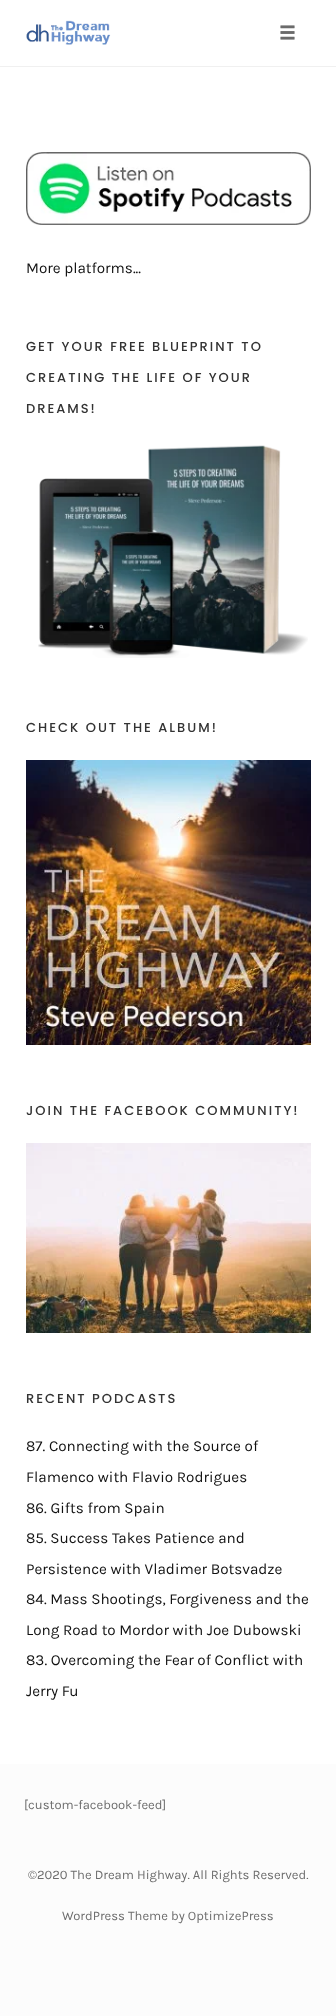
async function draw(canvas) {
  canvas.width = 336
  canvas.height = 2016
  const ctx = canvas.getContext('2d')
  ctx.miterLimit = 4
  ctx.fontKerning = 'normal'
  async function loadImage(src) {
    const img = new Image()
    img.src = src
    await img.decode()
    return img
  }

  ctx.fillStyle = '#fff'
  ctx.fillRect(0, 0, 336, 2016)
  ctx.fillStyle = '#f0f0f0'
  ctx.fillRect(0, 66, 336, 1)
  ctx.drawImage(await loadImage('image0.png'), 26, 20, 85, 25)
  ctx.drawImage(await loadImage('image1.png'), 280, 25, 15, 15)
  ctx.drawImage(await loadImage('image2.png'), 26, 152, 285, 73)
  ctx.font = '15.25px Karla'
  ctx.fillStyle = '#111'
  ctx.fillText('More platforms...', 26, 273)
  ctx.letterSpacing = '2px'
  ctx.font = '500 13px Poppins'
  ctx.fillStyle = '#333'
  ctx.fillText('GET YOUR FREE BLUEPRINT TO', 26, 351)
  ctx.fillText('CREATING THE LIFE OF YOUR', 26, 382)
  ctx.fillText('DREAMS!', 26, 413)
  ctx.drawImage(await loadImage('image3.png'), 38, 445, 270, 213)
  ctx.fillText('CHECK OUT THE ALBUM!', 26, 732)
  ctx.drawImage(await loadImage('image4.png'), 26, 760, 285, 285)
  ctx.fillText('JOIN THE FACEBOOK COMMUNITY!', 26, 1115)
  ctx.drawImage(await loadImage('image5.png'), 26, 1143, 285, 190)
  ctx.fillText('RECENT PODCASTS', 26, 1403)
  ctx.letterSpacing = '0px'
  ctx.font = '15.25px Karla'
  ctx.fillStyle = '#111'
  ctx.fillText('87. Connecting with the Source of', 26, 1451)
  ctx.fillText('Flamenco with Flavio Rodrigues', 26, 1482)
  ctx.fillText('86. Gifts from Spain', 26, 1513)
  ctx.fillText('85. Success Takes Patience and', 26, 1543)
  ctx.fillText('Persistence with Vladimer Botsvadze', 26, 1574)
  ctx.fillText('84. Mass Shootings, Forgiveness and the', 26, 1604)
  ctx.fillText('Long Road to Mordor with Joe Dubowski', 26, 1635)
  ctx.fillText('83. Overcoming the Fear of Conflict with', 26, 1665)
  ctx.fillText('Jerry Fu', 26, 1696)
  ctx.fillStyle = '#fcfcfc'
  ctx.fillRect(0, 1764, 336, 252)
  ctx.font = '13px Karla'
  ctx.fillStyle = '#6d6d6d'
  ctx.fillText('[custom-facebook-feed]', 24, 1809)
  ctx.fillText('©2020 The Dream Highway. All Rights Reserved.', 28, 1879)
  ctx.fillText('WordPress Theme by OptimizePress', 62, 1920)
}

draw(document.querySelector('canvas'))
